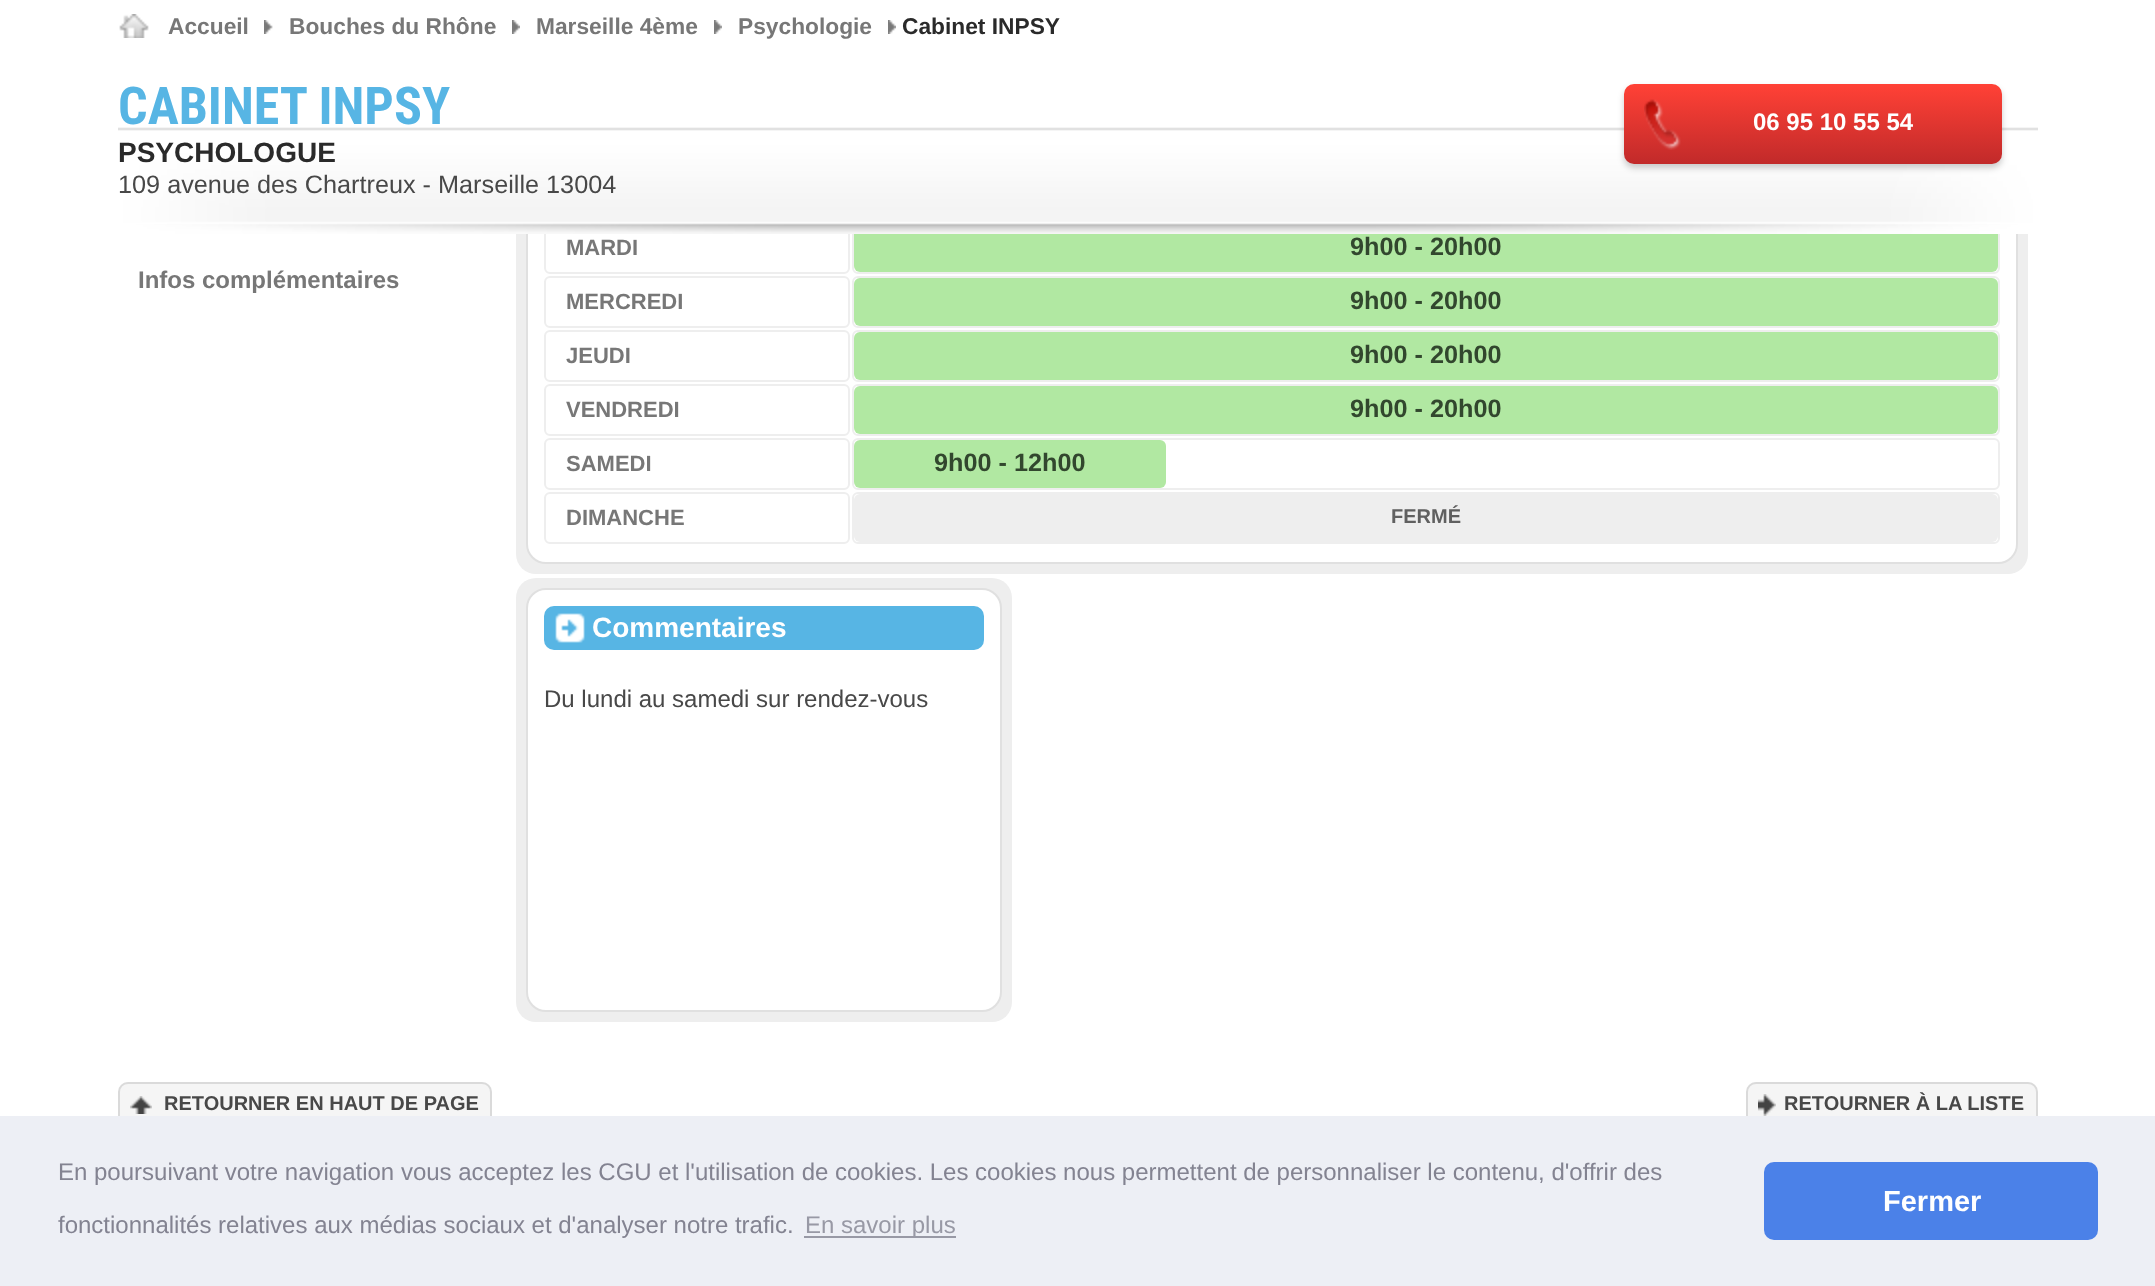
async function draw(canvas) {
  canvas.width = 2155
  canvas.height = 1286
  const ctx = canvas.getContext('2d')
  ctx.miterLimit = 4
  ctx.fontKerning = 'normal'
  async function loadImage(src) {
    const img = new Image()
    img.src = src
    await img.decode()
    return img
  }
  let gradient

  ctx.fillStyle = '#fff'
  ctx.fillRect(0, 0, 2155, 1286)
  ctx.fillStyle = '#eee'
  ctx.beginPath()
  ctx.roundRect(516, 80, 1512, 494, 20)
  ctx.fill()
  ctx.fillStyle = '#fff'
  ctx.beginPath()
  ctx.roundRect(527, 91, 1490, 472, 19)
  ctx.fill()
  ctx.strokeStyle = '#e0e0e0'
  ctx.lineWidth = 2
  ctx.stroke()
  ctx.beginPath()
  ctx.roundRect(545, 223, 304, 50, 5)
  ctx.strokeStyle = '#eee'
  ctx.stroke()
  ctx.beginPath()
  ctx.roundRect(853, 223, 1146, 50, 5)
  ctx.stroke()
  ctx.fillStyle = '#b1e8a2'
  ctx.beginPath()
  ctx.roundRect(854, 224, 1144, 48, 6)
  ctx.fill()
  ctx.fillStyle = '#fff'
  ctx.fillRect(516, 80, 1512, 154)
  ctx.drawImage(await loadImage('image0.png'), 119, 14, 30, 24)
  ctx.font = 'bold 22.75px Liberation Sans'
  ctx.fillStyle = '#777'
  ctx.fillText('Accueil', 168, 34)
  ctx.drawImage(await loadImage('image1.png'), 264, 20, 9, 14)
  ctx.fillText('Bouches du Rhône', 289, 34)
  ctx.drawImage(await loadImage('image2.png'), 512, 20, 8, 14)
  ctx.fillText('Marseille 4ème', 536, 34)
  ctx.drawImage(await loadImage('image2.png'), 714, 20, 8, 14)
  ctx.fillText('Psychologie', 738, 34)
  ctx.drawImage(await loadImage('image2.png'), 888, 20, 8, 14)
  ctx.fillStyle = '#2a2a2a'
  ctx.fillText('Cabinet INPSY', 902, 34)
  ctx.drawImage(await loadImage('image3.png'), 118, 127, 1920, 107)
  ctx.font = 'bold 52px Roboto Condensed'
  ctx.fillStyle = '#57b5e4'
  ctx.fillText('CABINET INPSY', 118, 124)
  ctx.fillStyle = '#00000033'
  ctx.filter = 'blur(3px)'
  ctx.beginPath()
  ctx.roundRect(1624, 88, 378, 80, 10)
  ctx.fill()
  ctx.filter = 'none'
  gradient = ctx.createLinearGradient(1813, 84, 1813, 164)
  gradient.addColorStop(0.01, '#ff4136')
  gradient.addColorStop(1, '#c12a2a')
  ctx.fillStyle = gradient
  ctx.beginPath()
  ctx.roundRect(1624, 84, 378, 80, 10)
  ctx.fill()
  ctx.drawImage(await loadImage('image4.png'), 1644, 99, 37, 51)
  ctx.font = 'bold 24px Liberation Sans'
  ctx.fillStyle = '#fff'
  ctx.fillText('06 95 10 55 54', 1753, 130)
  ctx.font = 'bold 28px Liberation Sans'
  ctx.fillStyle = '#2a2a2a'
  ctx.fillText('PSYCHOLOGUE', 118, 162)
  ctx.font = '25.25px Liberation Sans'
  ctx.fillStyle = '#484848'
  ctx.fillText('109 avenue des Chartreux - Marseille 13004', 118, 193)
  ctx.font = 'bold 24px Liberation Sans'
  ctx.fillStyle = '#777'
  ctx.fillText('Infos complémentaires', 138, 288)
  ctx.font = 'bold 22px Liberation Sans'
  ctx.fillText('MARDI', 566, 255)
  ctx.font = 'bold 25.25px Liberation Sans'
  ctx.fillStyle = '#32472e'
  ctx.fillText('9h00 - 20h00', 1350, 255)
  ctx.beginPath()
  ctx.roundRect(545, 277, 304, 50, 5)
  ctx.stroke()
  ctx.font = 'bold 22px Liberation Sans'
  ctx.fillStyle = '#777'
  ctx.fillText('MERCREDI', 566, 309)
  ctx.beginPath()
  ctx.roundRect(853, 277, 1146, 50, 5)
  ctx.stroke()
  ctx.fillStyle = '#b1e8a2'
  ctx.beginPath()
  ctx.roundRect(854, 278, 1144, 48, 6)
  ctx.fill()
  ctx.font = 'bold 25.25px Liberation Sans'
  ctx.fillStyle = '#32472e'
  ctx.fillText('9h00 - 20h00', 1350, 309)
  ctx.beginPath()
  ctx.roundRect(545, 331, 304, 50, 5)
  ctx.stroke()
  ctx.font = 'bold 22px Liberation Sans'
  ctx.fillStyle = '#777'
  ctx.fillText('JEUDI', 566, 363)
  ctx.beginPath()
  ctx.roundRect(853, 331, 1146, 50, 5)
  ctx.stroke()
  ctx.fillStyle = '#b1e8a2'
  ctx.beginPath()
  ctx.roundRect(854, 332, 1144, 48, 6)
  ctx.fill()
  ctx.font = 'bold 25.25px Liberation Sans'
  ctx.fillStyle = '#32472e'
  ctx.fillText('9h00 - 20h00', 1350, 363)
  ctx.beginPath()
  ctx.roundRect(545, 385, 304, 50, 5)
  ctx.stroke()
  ctx.font = 'bold 22px Liberation Sans'
  ctx.fillStyle = '#777'
  ctx.fillText('VENDREDI', 566, 417)
  ctx.beginPath()
  ctx.roundRect(853, 385, 1146, 50, 5)
  ctx.stroke()
  ctx.fillStyle = '#b1e8a2'
  ctx.beginPath()
  ctx.roundRect(854, 386, 1144, 48, 6)
  ctx.fill()
  ctx.font = 'bold 25.25px Liberation Sans'
  ctx.fillStyle = '#32472e'
  ctx.fillText('9h00 - 20h00', 1350, 417)
  ctx.beginPath()
  ctx.roundRect(545, 439, 304, 50, 5)
  ctx.stroke()
  ctx.font = 'bold 22px Liberation Sans'
  ctx.fillStyle = '#777'
  ctx.fillText('SAMEDI', 566, 471)
  ctx.beginPath()
  ctx.roundRect(853, 439, 1146, 50, 5)
  ctx.stroke()
  ctx.fillStyle = '#b1e8a2'
  ctx.beginPath()
  ctx.roundRect(854, 440, 312, 48, 6)
  ctx.fill()
  ctx.font = 'bold 25.25px Liberation Sans'
  ctx.fillStyle = '#32472e'
  ctx.fillText('9h00 - 12h00', 934, 471)
  ctx.beginPath()
  ctx.roundRect(545, 493, 304, 50, 5)
  ctx.stroke()
  ctx.font = 'bold 22px Liberation Sans'
  ctx.fillStyle = '#777'
  ctx.fillText('DIMANCHE', 566, 525)
  ctx.beginPath()
  ctx.roundRect(853, 493, 1146, 50, 5)
  ctx.stroke()
  ctx.fillStyle = '#eee'
  ctx.beginPath()
  ctx.roundRect(854, 494, 1144, 48, 6)
  ctx.fill()
  ctx.font = 'bold 20px Liberation Sans'
  ctx.fillStyle = '#606060'
  ctx.fillText('FERMÉ', 1391, 523)
  ctx.fillStyle = '#eee'
  ctx.beginPath()
  ctx.roundRect(516, 578, 496, 444, 20)
  ctx.fill()
  ctx.fillStyle = '#fff'
  ctx.beginPath()
  ctx.roundRect(527, 589, 474, 422, 19)
  ctx.fill()
  ctx.strokeStyle = '#e0e0e0'
  ctx.stroke()
  ctx.fillStyle = '#57b5e4'
  ctx.beginPath()
  ctx.roundRect(544, 606, 440, 44, 10)
  ctx.fill()
  ctx.drawImage(await loadImage('image5.png'), 555, 613, 30, 30)
  ctx.font = 'bold 28px Liberation Sans'
  ctx.fillStyle = '#fff'
  ctx.fillText('Commentaires', 592, 637)
  ctx.font = '24px Liberation Sans'
  ctx.fillStyle = '#484848'
  ctx.fillText('Du lundi au samedi sur rendez-vous', 544, 707)
  ctx.fillStyle = '#f5f5f5'
  ctx.beginPath()
  ctx.roundRect(118, 1082, 374, 46, 10)
  ctx.fill()
  ctx.drawImage(await loadImage('image6.png'), 130, 1096, 22, 18)
  ctx.beginPath()
  ctx.roundRect(119, 1083, 372, 44, 9)
  ctx.strokeStyle = '#dadada'
  ctx.stroke()
  ctx.font = 'bold 20px Liberation Sans'
  ctx.fillStyle = '#484848'
  ctx.fillText('RETOURNER EN HAUT DE PAGE', 164, 1110)
  ctx.fillStyle = '#f5f5f5'
  ctx.beginPath()
  ctx.roundRect(1746, 1082, 292, 46, 10)
  ctx.fill()
  ctx.drawImage(await loadImage('image7.png'), 1758, 1094, 18, 22)
  ctx.beginPath()
  ctx.roundRect(1747, 1083, 290, 44, 9)
  ctx.stroke()
  ctx.fillStyle = '#484848'
  ctx.fillText('RETOURNER À LA LISTE', 1784, 1110)
  ctx.fillStyle = '#edeff5'
  ctx.fillRect(0, 1116, 2155, 170)
  ctx.font = '24px Liberation Sans'
  ctx.fillStyle = '#838391'
  ctx.fillText('En poursuivant votre navigation vous acceptez les CGU et l\'utilisation de cookies. Les cookies nous permettent de personnaliser le contenu, d\'offrir des', 58, 1180)
  ctx.fillText('fonctionnalités relatives aux médias sociaux et d\'analyser notre trafic.', 58, 1233)
  ctx.fillStyle = '#9899a5'
  ctx.fillRect(804, 1236, 152, 2)
  ctx.fillText('En savoir plus', 805, 1233)
  ctx.fillStyle = '#4b81e8'
  ctx.beginPath()
  ctx.roundRect(1764, 1162, 334, 78, 10)
  ctx.fill()
  ctx.font = 'bold 29px Liberation Sans'
  ctx.fillStyle = '#fff'
  ctx.fillText('Fermer', 1883, 1211)
}

draw(document.querySelector('canvas'))
